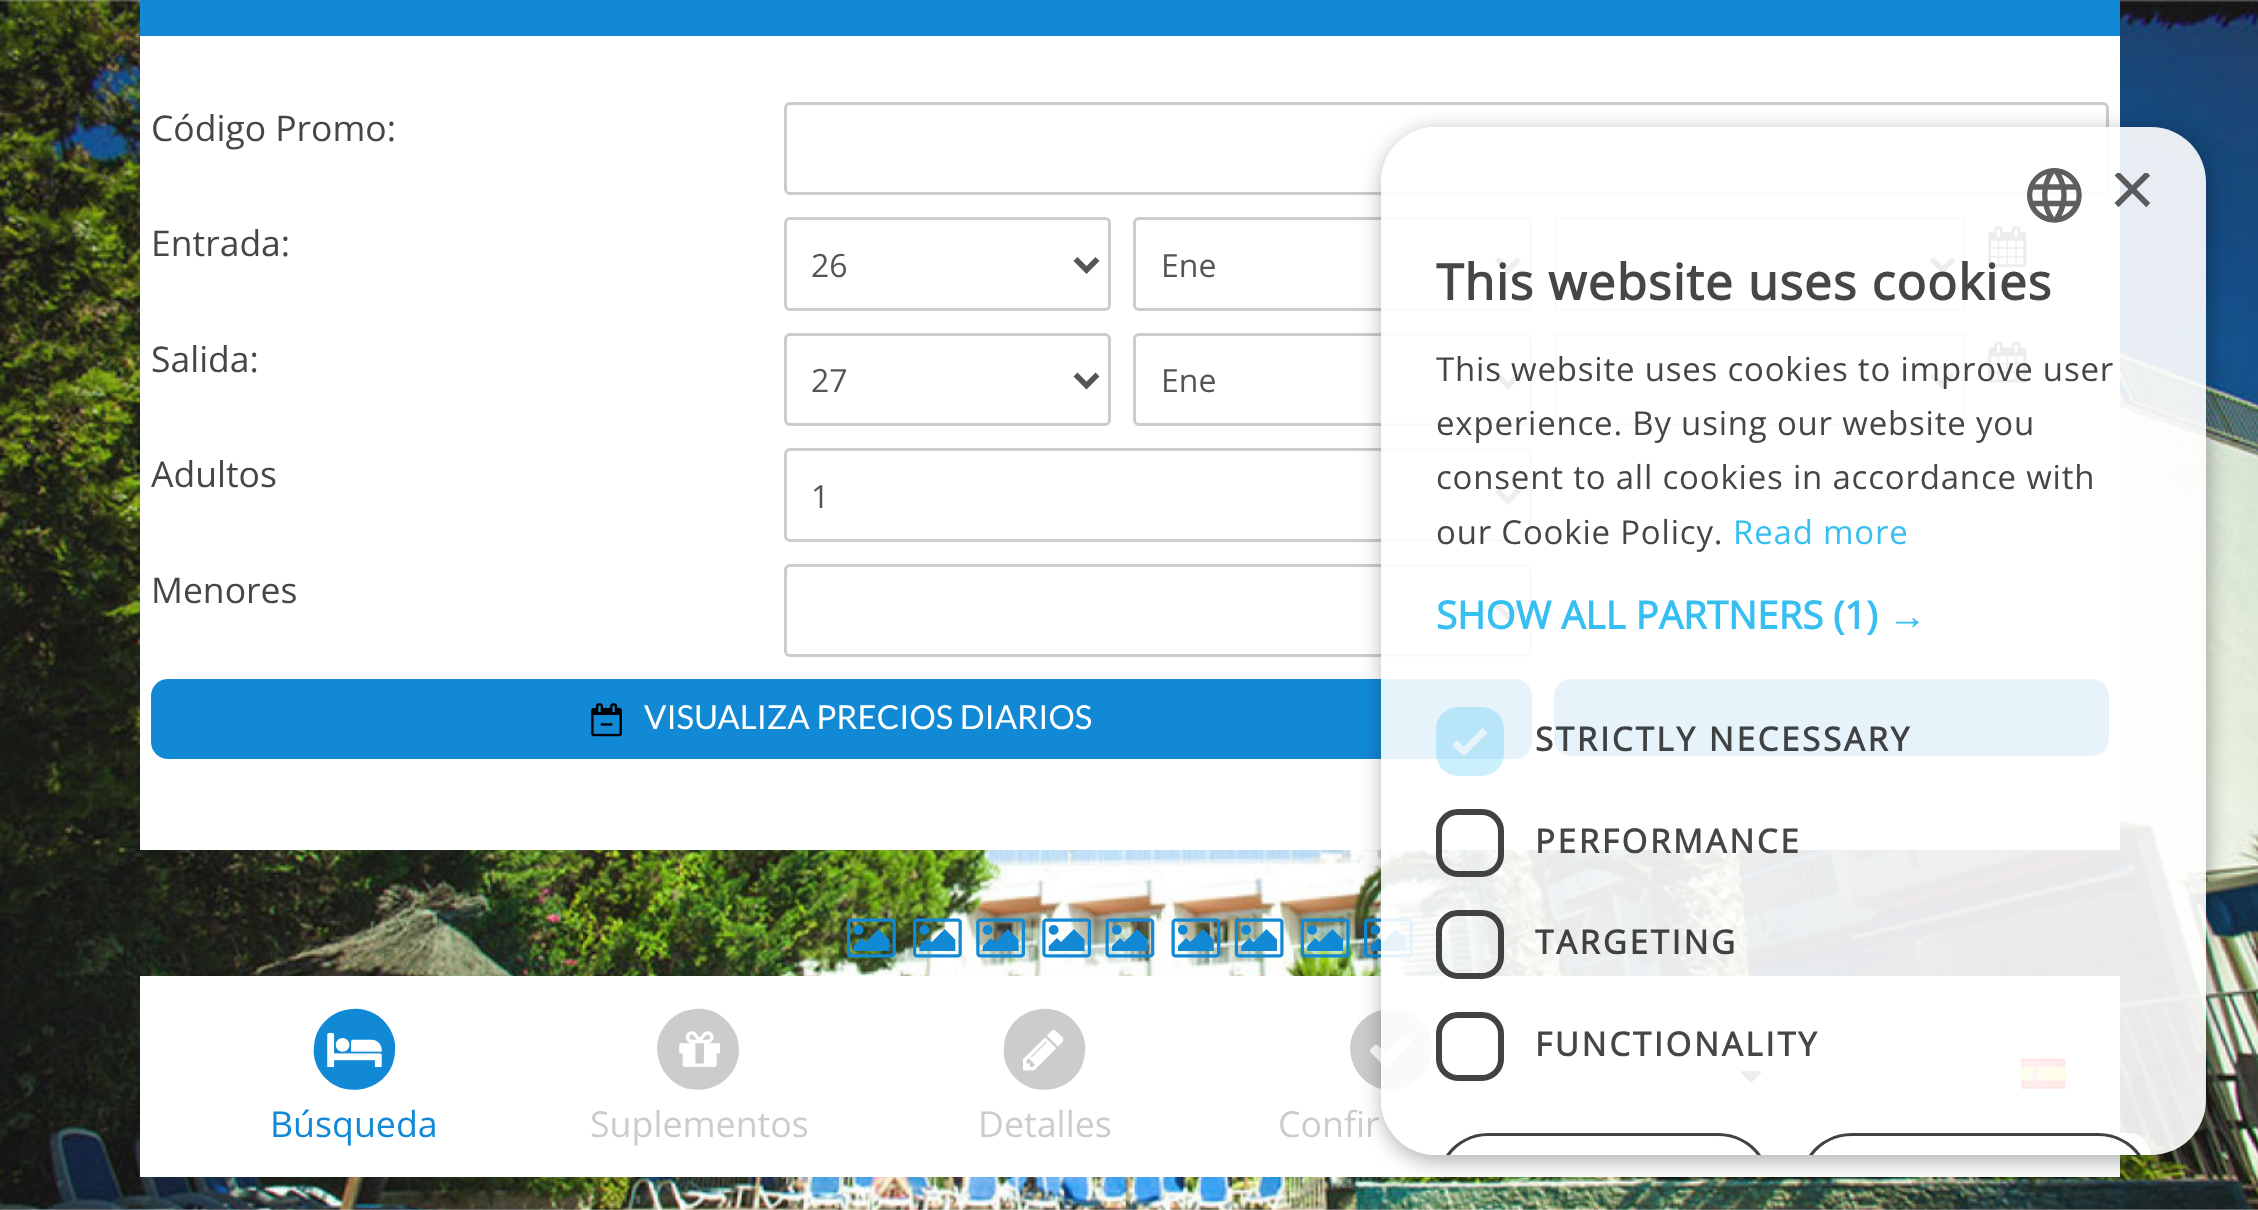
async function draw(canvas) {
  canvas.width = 2258
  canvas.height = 1210
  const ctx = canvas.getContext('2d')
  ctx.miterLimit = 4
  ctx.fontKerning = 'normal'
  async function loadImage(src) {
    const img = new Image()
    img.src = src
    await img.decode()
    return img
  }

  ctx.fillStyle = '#fff'
  ctx.fillRect(0, 0, 2258, 1210)
  ctx.drawImage(await loadImage('image0.png'), 0, 0, 2258, 1210)
  ctx.fillStyle = '#1289d5'
  ctx.fillRect(140, 0, 1980, 36)
  ctx.fillStyle = '#fff'
  ctx.fillRect(140, 36, 1980, 814)
  ctx.font = '35.5px Open Sans'
  ctx.fillStyle = '#464646'
  ctx.fillText('Código Promo:', 151, 141)
  ctx.beginPath()
  ctx.roundRect(785.5, 103.5, 1322, 90, 4.5)
  ctx.strokeStyle = '#ccc'
  ctx.lineWidth = 3
  ctx.stroke()
  ctx.fillText('Entrada:', 151, 256)
  ctx.beginPath()
  ctx.roundRect(1555.5, 218.5, 409, 91, 4.5)
  ctx.stroke()
  ctx.beginPath()
  ctx.moveTo(1931.5, 259)
  ctx.lineTo(1942.5, 270)
  ctx.lineTo(1953.5, 259)
  ctx.strokeStyle = '#555'
  ctx.lineWidth = 5.5
  ctx.stroke()
  ctx.drawImage(await loadImage('image1.png'), 1988, 226, 39, 42)
  ctx.beginPath()
  ctx.roundRect(785.5, 218.5, 324, 91, 4.5)
  ctx.strokeStyle = '#ccc'
  ctx.lineWidth = 3
  ctx.stroke()
  ctx.beginPath()
  ctx.moveTo(1075.5, 259)
  ctx.lineTo(1086.5, 270)
  ctx.lineTo(1097.5, 259)
  ctx.strokeStyle = '#555'
  ctx.lineWidth = 5.5
  ctx.stroke()
  ctx.font = '32px Open Sans'
  ctx.fillStyle = '#555'
  ctx.fillText('26', 811, 277)
  ctx.beginPath()
  ctx.roundRect(1134.5, 218.5, 396, 91, 4.5)
  ctx.strokeStyle = '#ccc'
  ctx.lineWidth = 3
  ctx.stroke()
  ctx.beginPath()
  ctx.moveTo(1497, 259)
  ctx.lineTo(1508, 270)
  ctx.lineTo(1519, 259)
  ctx.strokeStyle = '#555'
  ctx.lineWidth = 5.5
  ctx.stroke()
  ctx.fillText('Ene', 1161, 277)
  ctx.font = '35.5px Open Sans'
  ctx.fillStyle = '#464646'
  ctx.fillText('Salida:', 151, 372)
  ctx.beginPath()
  ctx.roundRect(1555.5, 334.5, 409, 90, 4.5)
  ctx.strokeStyle = '#ccc'
  ctx.lineWidth = 3
  ctx.stroke()
  ctx.beginPath()
  ctx.moveTo(1931.5, 374.5)
  ctx.lineTo(1942.5, 385.5)
  ctx.lineTo(1953.5, 374.5)
  ctx.strokeStyle = '#555'
  ctx.lineWidth = 5.5
  ctx.stroke()
  ctx.drawImage(await loadImage('image2.png'), 1988, 341, 39, 42)
  ctx.beginPath()
  ctx.roundRect(785.5, 334.5, 324, 90, 4.5)
  ctx.strokeStyle = '#ccc'
  ctx.lineWidth = 3
  ctx.stroke()
  ctx.beginPath()
  ctx.moveTo(1075.5, 374.5)
  ctx.lineTo(1086.5, 385.5)
  ctx.lineTo(1097.5, 374.5)
  ctx.strokeStyle = '#555'
  ctx.lineWidth = 5.5
  ctx.stroke()
  ctx.font = '32px Open Sans'
  ctx.fillStyle = '#555'
  ctx.fillText('27', 811, 392)
  ctx.beginPath()
  ctx.roundRect(1134.5, 334.5, 396, 90, 4.5)
  ctx.strokeStyle = '#ccc'
  ctx.lineWidth = 3
  ctx.stroke()
  ctx.beginPath()
  ctx.moveTo(1497, 374.5)
  ctx.lineTo(1508, 385.5)
  ctx.lineTo(1519, 374.5)
  ctx.strokeStyle = '#555'
  ctx.lineWidth = 5.5
  ctx.stroke()
  ctx.fillText('Ene', 1161, 392)
  ctx.font = '35.5px Open Sans'
  ctx.fillStyle = '#464646'
  ctx.fillText('Adultos', 151, 487)
  ctx.beginPath()
  ctx.roundRect(785.5, 449.5, 745, 91, 4.5)
  ctx.strokeStyle = '#ccc'
  ctx.lineWidth = 3
  ctx.stroke()
  ctx.beginPath()
  ctx.moveTo(1497, 490)
  ctx.lineTo(1508, 501)
  ctx.lineTo(1519, 490)
  ctx.strokeStyle = '#555'
  ctx.lineWidth = 5.5
  ctx.stroke()
  ctx.font = '32px Open Sans'
  ctx.fillStyle = '#555'
  ctx.fillText('1', 811, 508)
  ctx.font = '35.5px Open Sans'
  ctx.fillStyle = '#464646'
  ctx.fillText('Menores', 151, 603)
  ctx.beginPath()
  ctx.roundRect(785.5, 565.5, 745, 90, 4.5)
  ctx.strokeStyle = '#ccc'
  ctx.lineWidth = 3
  ctx.stroke()
  ctx.beginPath()
  ctx.moveTo(1497, 605.5)
  ctx.lineTo(1508, 616.5)
  ctx.lineTo(1519, 605.5)
  ctx.strokeStyle = '#555'
  ctx.lineWidth = 5.5
  ctx.stroke()
  ctx.fillStyle = '#1289d5'
  ctx.beginPath()
  ctx.roundRect(151, 679, 1381, 80, 17)
  ctx.fill()
  ctx.drawImage(await loadImage('image3.png'), 591, 703, 31, 34)
  ctx.font = '33px Lato'
  ctx.fillStyle = '#fff'
  ctx.fillText('VISUALIZA PRECIOS DIARIOS', 644, 729)
  ctx.fillStyle = '#1289d5'
  ctx.beginPath()
  ctx.roundRect(1554, 679, 555, 77, 17)
  ctx.fill()
  ctx.drawImage(await loadImage('image4.png'), 847, 918, 49, 40)
  ctx.drawImage(await loadImage('image5.png'), 913, 918, 49, 40)
  ctx.drawImage(await loadImage('image6.png'), 976, 918, 50, 40)
  ctx.drawImage(await loadImage('image7.png'), 1042, 918, 50, 40)
  ctx.drawImage(await loadImage('image8.png'), 1105, 918, 50, 40)
  ctx.drawImage(await loadImage('image9.png'), 1171, 918, 50, 40)
  ctx.drawImage(await loadImage('image10.png'), 1234, 918, 50, 40)
  ctx.drawImage(await loadImage('image11.png'), 1300, 918, 50, 40)
  ctx.drawImage(await loadImage('image12.png'), 1364, 918, 49, 40)
  ctx.fillStyle = '#fff'
  ctx.fillRect(140, 976, 1980, 201)
  ctx.drawImage(await loadImage('image13.png'), 1740, 1071, 22, 12)
  ctx.drawImage(await loadImage('image14.png'), 2021, 1058, 45, 31)
  ctx.fillStyle = '#1289d5'
  ctx.beginPath()
  ctx.moveTo(390, 1029)
  ctx.bezierCurveTo(394, 1036, 396, 1044, 395, 1052)
  ctx.bezierCurveTo(393, 1092, 339, 1104, 319, 1070)
  ctx.bezierCurveTo(315, 1063, 313, 1055, 314, 1047)
  ctx.bezierCurveTo(316, 1007, 370, 994, 390, 1029)
  ctx.closePath()
  ctx.fill()
  ctx.drawImage(await loadImage('image15.png'), 327, 1032, 55, 35)
  ctx.font = '35.75px Open Sans'
  ctx.fillText('Búsqueda', 270, 1137)
  ctx.fillStyle = '#ccc'
  ctx.beginPath()
  ctx.moveTo(733, 1029)
  ctx.bezierCurveTo(738, 1036, 739, 1044, 739, 1052)
  ctx.bezierCurveTo(736, 1092, 683, 1104, 663, 1070)
  ctx.bezierCurveTo(659, 1063, 657, 1055, 657, 1047)
  ctx.bezierCurveTo(660, 1007, 713, 994, 733, 1029)
  ctx.closePath()
  ctx.fill()
  ctx.drawImage(await loadImage('image16.png'), 679, 1031, 42, 36)
  ctx.fillText('Suplementos', 590, 1137)
  ctx.beginPath()
  ctx.moveTo(1080, 1029)
  ctx.bezierCurveTo(1084, 1036, 1086, 1044, 1085, 1052)
  ctx.bezierCurveTo(1083, 1092, 1029, 1104, 1009, 1070)
  ctx.bezierCurveTo(1005, 1063, 1003, 1055, 1004, 1047)
  ctx.bezierCurveTo(1006, 1007, 1060, 994, 1080, 1029)
  ctx.closePath()
  ctx.fill()
  ctx.drawImage(await loadImage('image17.png'), 1023, 1030, 41, 41)
  ctx.fillText('Detalles', 978, 1137)
  ctx.beginPath()
  ctx.moveTo(1426, 1029)
  ctx.bezierCurveTo(1431, 1036, 1432, 1044, 1432, 1052)
  ctx.bezierCurveTo(1429, 1092, 1376, 1104, 1356, 1070)
  ctx.bezierCurveTo(1352, 1063, 1350, 1055, 1350, 1047)
  ctx.bezierCurveTo(1353, 1007, 1406, 994, 1426, 1029)
  ctx.closePath()
  ctx.fill()
  ctx.drawImage(await loadImage('image18.png'), 1370, 1035, 42, 32)
  ctx.fillText('Confir', 1278, 1137)
  ctx.save()
  ctx.beginPath()
  ctx.moveTo(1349, 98)
  ctx.lineTo(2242, 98)
  ctx.lineTo(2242, 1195)
  ctx.lineTo(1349, 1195)
  ctx.closePath()
  ctx.moveTo(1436, 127)
  ctx.lineTo(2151, 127)
  ctx.bezierCurveTo(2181.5, 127, 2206, 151.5, 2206, 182)
  ctx.lineTo(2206, 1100)
  ctx.bezierCurveTo(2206, 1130.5, 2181.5, 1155, 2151, 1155)
  ctx.lineTo(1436, 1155)
  ctx.bezierCurveTo(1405.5, 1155, 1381, 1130.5, 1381, 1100)
  ctx.lineTo(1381, 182)
  ctx.bezierCurveTo(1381, 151.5, 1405.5, 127, 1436, 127)
  ctx.closePath()
  ctx.clip('evenodd')
  ctx.fillStyle = '#00000052'
  ctx.filter = 'blur(11px)'
  ctx.beginPath()
  ctx.roundRect(1383, 132, 825, 1029, 55)
  ctx.fill()
  ctx.filter = 'none'
  ctx.restore()
  ctx.fillStyle = '#ffffffe6'
  ctx.beginPath()
  ctx.roundRect(1381, 127, 825, 1028, 55)
  ctx.fill()
  ctx.drawImage(await loadImage('image19.png'), 2027, 168, 55, 55)
  ctx.save()
  ctx.beginPath()
  ctx.rect(2109, 173, 42, 42)
  ctx.clip()
  ctx.font = '80px Liberation Sans'
  ctx.fillStyle = '#595b5c'
  ctx.fillText('×', 2109, 216)
  ctx.restore()
  ctx.letterSpacing = '1.1px'
  ctx.font = 'bold 49.5px Open Sans'
  ctx.fillStyle = '#464646'
  ctx.fillText('This website uses cookies', 1436, 300)
  ctx.letterSpacing = '0.8px'
  ctx.font = '33px Open Sans'
  ctx.fillText('This website uses cookies to improve user', 1436, 381)
  ctx.fillText('experience. By using our website you', 1436, 435)
  ctx.fillText('consent to all cookies in accordance with', 1436, 489)
  ctx.fillText('our Cookie Policy.', 1436, 544)
  ctx.fillStyle = '#38bff2'
  ctx.fillText('Read more', 1733, 544)
  ctx.letterSpacing = '0px'
  ctx.font = 'bold 38.5px Open Sans'
  ctx.fillText('SHOW ALL PARTNERS', 1436, 629)
  ctx.fillText('(1)', 1833, 629)
  ctx.font = 'bold 38.5px Liberation Sans'
  ctx.fillText('→', 1888, 629)
  ctx.fillStyle = '#22b8f03b'
  ctx.beginPath()
  ctx.roundRect(1436, 707, 68, 69, 22)
  ctx.fill()
  ctx.beginPath()
  ctx.moveTo(1454.5, 742.5)
  ctx.lineTo(1464, 751.5)
  ctx.lineTo(1485, 730.5)
  ctx.strokeStyle = '#e7f3fb'
  ctx.lineWidth = 7.2
  ctx.stroke()
  ctx.letterSpacing = '2.75px'
  ctx.font = 'bold 33px Open Sans'
  ctx.fillStyle = '#404142'
  ctx.fillText('STRICTLY NECESSARY', 1535, 751)
  ctx.beginPath()
  ctx.roundRect(1439, 812, 62, 62, 19)
  ctx.strokeStyle = '#2d2d2de6'
  ctx.lineWidth = 6
  ctx.stroke()
  ctx.fillStyle = '#464646'
  ctx.fillText('PERFORMANCE', 1535, 853)
  ctx.beginPath()
  ctx.roundRect(1439, 913, 62, 63, 19)
  ctx.stroke()
  ctx.fillStyle = '#404142'
  ctx.fillText('TARGETING', 1535, 954)
  ctx.beginPath()
  ctx.roundRect(1439, 1015, 62, 63, 19)
  ctx.strokeStyle = '#424242'
  ctx.stroke()
  ctx.fillStyle = '#464646'
  ctx.fillText('FUNCTIONALITY', 1535, 1056)
  ctx.fillStyle = '#ffffffe6'
  ctx.beginPath()
  ctx.roundRect(1436, 1133, 335, 22, [52.5, 52.5, 0, 0])
  ctx.fill()
  ctx.fillStyle = '#424242'
  ctx.beginPath()
  ctx.moveTo(1488, 1133)
  ctx.bezierCurveTo(1471, 1133, 1455, 1142, 1446, 1155)
  ctx.lineTo(1450, 1155)
  ctx.bezierCurveTo(1459, 1143, 1473, 1136, 1488, 1136)
  ctx.lineTo(1718, 1136)
  ctx.bezierCurveTo(1734, 1136, 1748, 1143, 1757, 1155)
  ctx.lineTo(1761, 1155)
  ctx.bezierCurveTo(1752, 1142, 1736, 1133, 1718, 1133)
  ctx.closePath()
  ctx.fill()
  ctx.fillStyle = '#ffffffe6'
  ctx.beginPath()
  ctx.roundRect(1799, 1133, 352, 22, [52.5, 52.5, 0, 0])
  ctx.fill()
  ctx.fillStyle = '#2d2d2de6'
  ctx.beginPath()
  ctx.moveTo(1852, 1133)
  ctx.bezierCurveTo(1834, 1133, 1818, 1142, 1809, 1155)
  ctx.lineTo(1813, 1155)
  ctx.bezierCurveTo(1822, 1143, 1836, 1136, 1852, 1136)
  ctx.lineTo(2098, 1136)
  ctx.bezierCurveTo(2114, 1136, 2128, 1143, 2137, 1155)
  ctx.lineTo(2141, 1155)
  ctx.bezierCurveTo(2132, 1142, 2116, 1133, 2098, 1133)
  ctx.closePath()
  ctx.fill()
}

draw(document.querySelector('canvas'))
